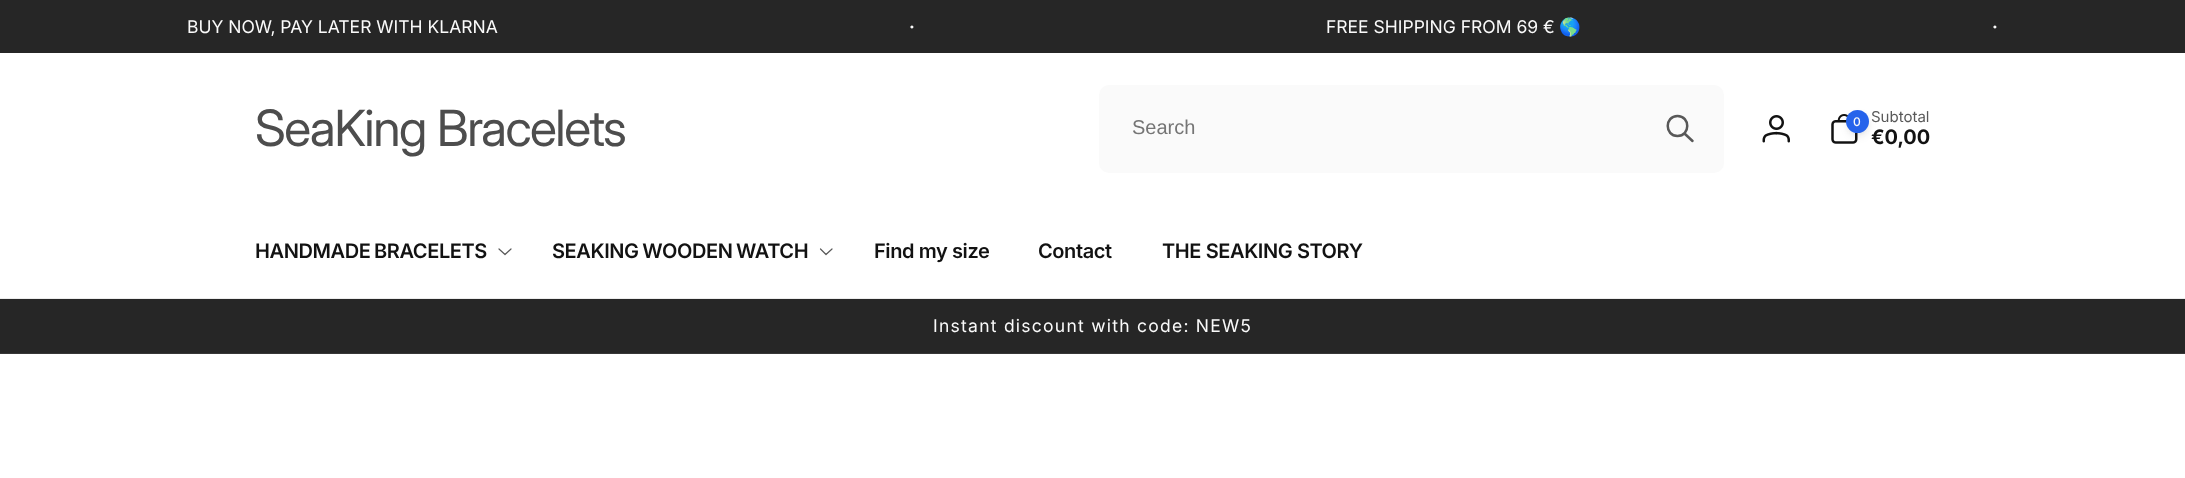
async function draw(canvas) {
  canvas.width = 2185
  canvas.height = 478
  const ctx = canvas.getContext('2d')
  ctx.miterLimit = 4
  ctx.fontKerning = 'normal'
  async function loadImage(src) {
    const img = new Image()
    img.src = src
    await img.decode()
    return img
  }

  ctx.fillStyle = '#fff'
  ctx.fillRect(0, 0, 2185, 478)
  ctx.fillStyle = '#262626'
  ctx.fillRect(0, 0, 2185, 53)
  ctx.font = '17.5px Inter'
  ctx.fillStyle = '#fafafa'
  ctx.fillText('BUY NOW, PAY LATER WITH KLARNA', 187, 33)
  ctx.font = 'bold 17.5px Inter'
  ctx.fillText('·', 909, 33)
  ctx.font = '17.5px Inter'
  ctx.fillText('FREE SHIPPING FROM 69 €', 1326, 33)
  ctx.font = '17.5px Noto Color Emoji'
  ctx.fillText('🌎', 1559, 33)
  ctx.font = 'bold 17.5px Inter'
  ctx.fillText('·', 1992, 33)
  ctx.fillStyle = '#ececec'
  ctx.fillRect(0, 298, 2185, 1)
  ctx.letterSpacing = '-1.5px'
  ctx.font = '50px "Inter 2"'
  ctx.fillStyle = '#4d4d4d'
  ctx.fillText('SeaKing Bracelets', 255, 146)
  ctx.fillStyle = '#fafafa'
  ctx.beginPath()
  ctx.roundRect(1099, 85, 625, 88, 10)
  ctx.fill()
  ctx.letterSpacing = '0px'
  ctx.font = '20px Liberation Sans'
  ctx.fillStyle = '#757575'
  ctx.fillText('Search', 1132, 134)
  ctx.beginPath()
  ctx.moveTo(1692.5, 141)
  ctx.lineTo(1684.5, 133.5)
  ctx.moveTo(1677.5, 136)
  ctx.bezierCurveTo(1690.5, 136, 1690.5, 116, 1677.5, 116)
  ctx.bezierCurveTo(1664.5, 116, 1664.5, 136, 1677.5, 136)
  ctx.closePath()
  ctx.strokeStyle = '#585858'
  ctx.lineWidth = 2.5
  ctx.lineCap = 'round'
  ctx.lineJoin = 'round'
  ctx.stroke()
  ctx.drawImage(await loadImage('image0.png'), 1762, 115, 28, 28)
  ctx.drawImage(await loadImage('image1.png'), 1831, 114, 27, 30)
  ctx.fillStyle = '#1212120f'
  ctx.filter = 'blur(2.5px)'
  ctx.beginPath()
  ctx.roundRect(1848, 114, 20, 20, 10)
  ctx.fill()
  ctx.filter = 'none'
  ctx.fillStyle = '#1212121a'
  ctx.filter = 'blur(4px)'
  ctx.beginPath()
  ctx.roundRect(1848, 116, 20, 20, 10)
  ctx.fill()
  ctx.filter = 'none'
  ctx.fillStyle = '#2563eb'
  ctx.beginPath()
  ctx.arc(1857.5, 121.5, 11.5, 0, 2 * Math.PI)
  ctx.fill()
  ctx.font = '500 12px Inter'
  ctx.fillStyle = '#fafafa'
  ctx.fillText('0', 1853, 126)
  ctx.font = '15px Inter'
  ctx.fillStyle = '#595959'
  ctx.fillText('Subtotal', 1871, 122)
  ctx.font = 'bold 20px "Inter 2"'
  ctx.fillStyle = '#121212'
  ctx.fillText('€0,00', 1871, 144)
  ctx.letterSpacing = '-0.4px'
  ctx.wordSpacing = '-1px'
  ctx.font = '600 20px Inter'
  ctx.fillText('HANDMADE BRACELETS', 255, 258)
  ctx.beginPath()
  ctx.moveTo(511, 249)
  ctx.lineTo(505, 254.5)
  ctx.lineTo(499, 249)
  ctx.strokeStyle = '#595959'
  ctx.lineWidth = 1.2
  ctx.stroke()
  ctx.fillText('SEAKING WOODEN WATCH', 552, 258)
  ctx.beginPath()
  ctx.moveTo(832, 249)
  ctx.lineTo(826, 254.5)
  ctx.lineTo(820.5, 249)
  ctx.stroke()
  ctx.wordSpacing = '0px'
  ctx.fillText('Find my size', 874, 258)
  ctx.fillText('Contact', 1038, 258)
  ctx.fillText('THE SEAKING STORY', 1162, 258)
  ctx.fillStyle = '#262626'
  ctx.fillRect(0, 299, 2185, 54)
  ctx.fillStyle = '#373737'
  ctx.fillRect(0, 353, 2185, 1)
  ctx.letterSpacing = '1.25px'
  ctx.font = '17.5px Inter'
  ctx.fillStyle = '#fafafa'
  ctx.fillText('Instant discount with code: NEW5', 933, 332)
}

draw(document.querySelector('canvas'))
